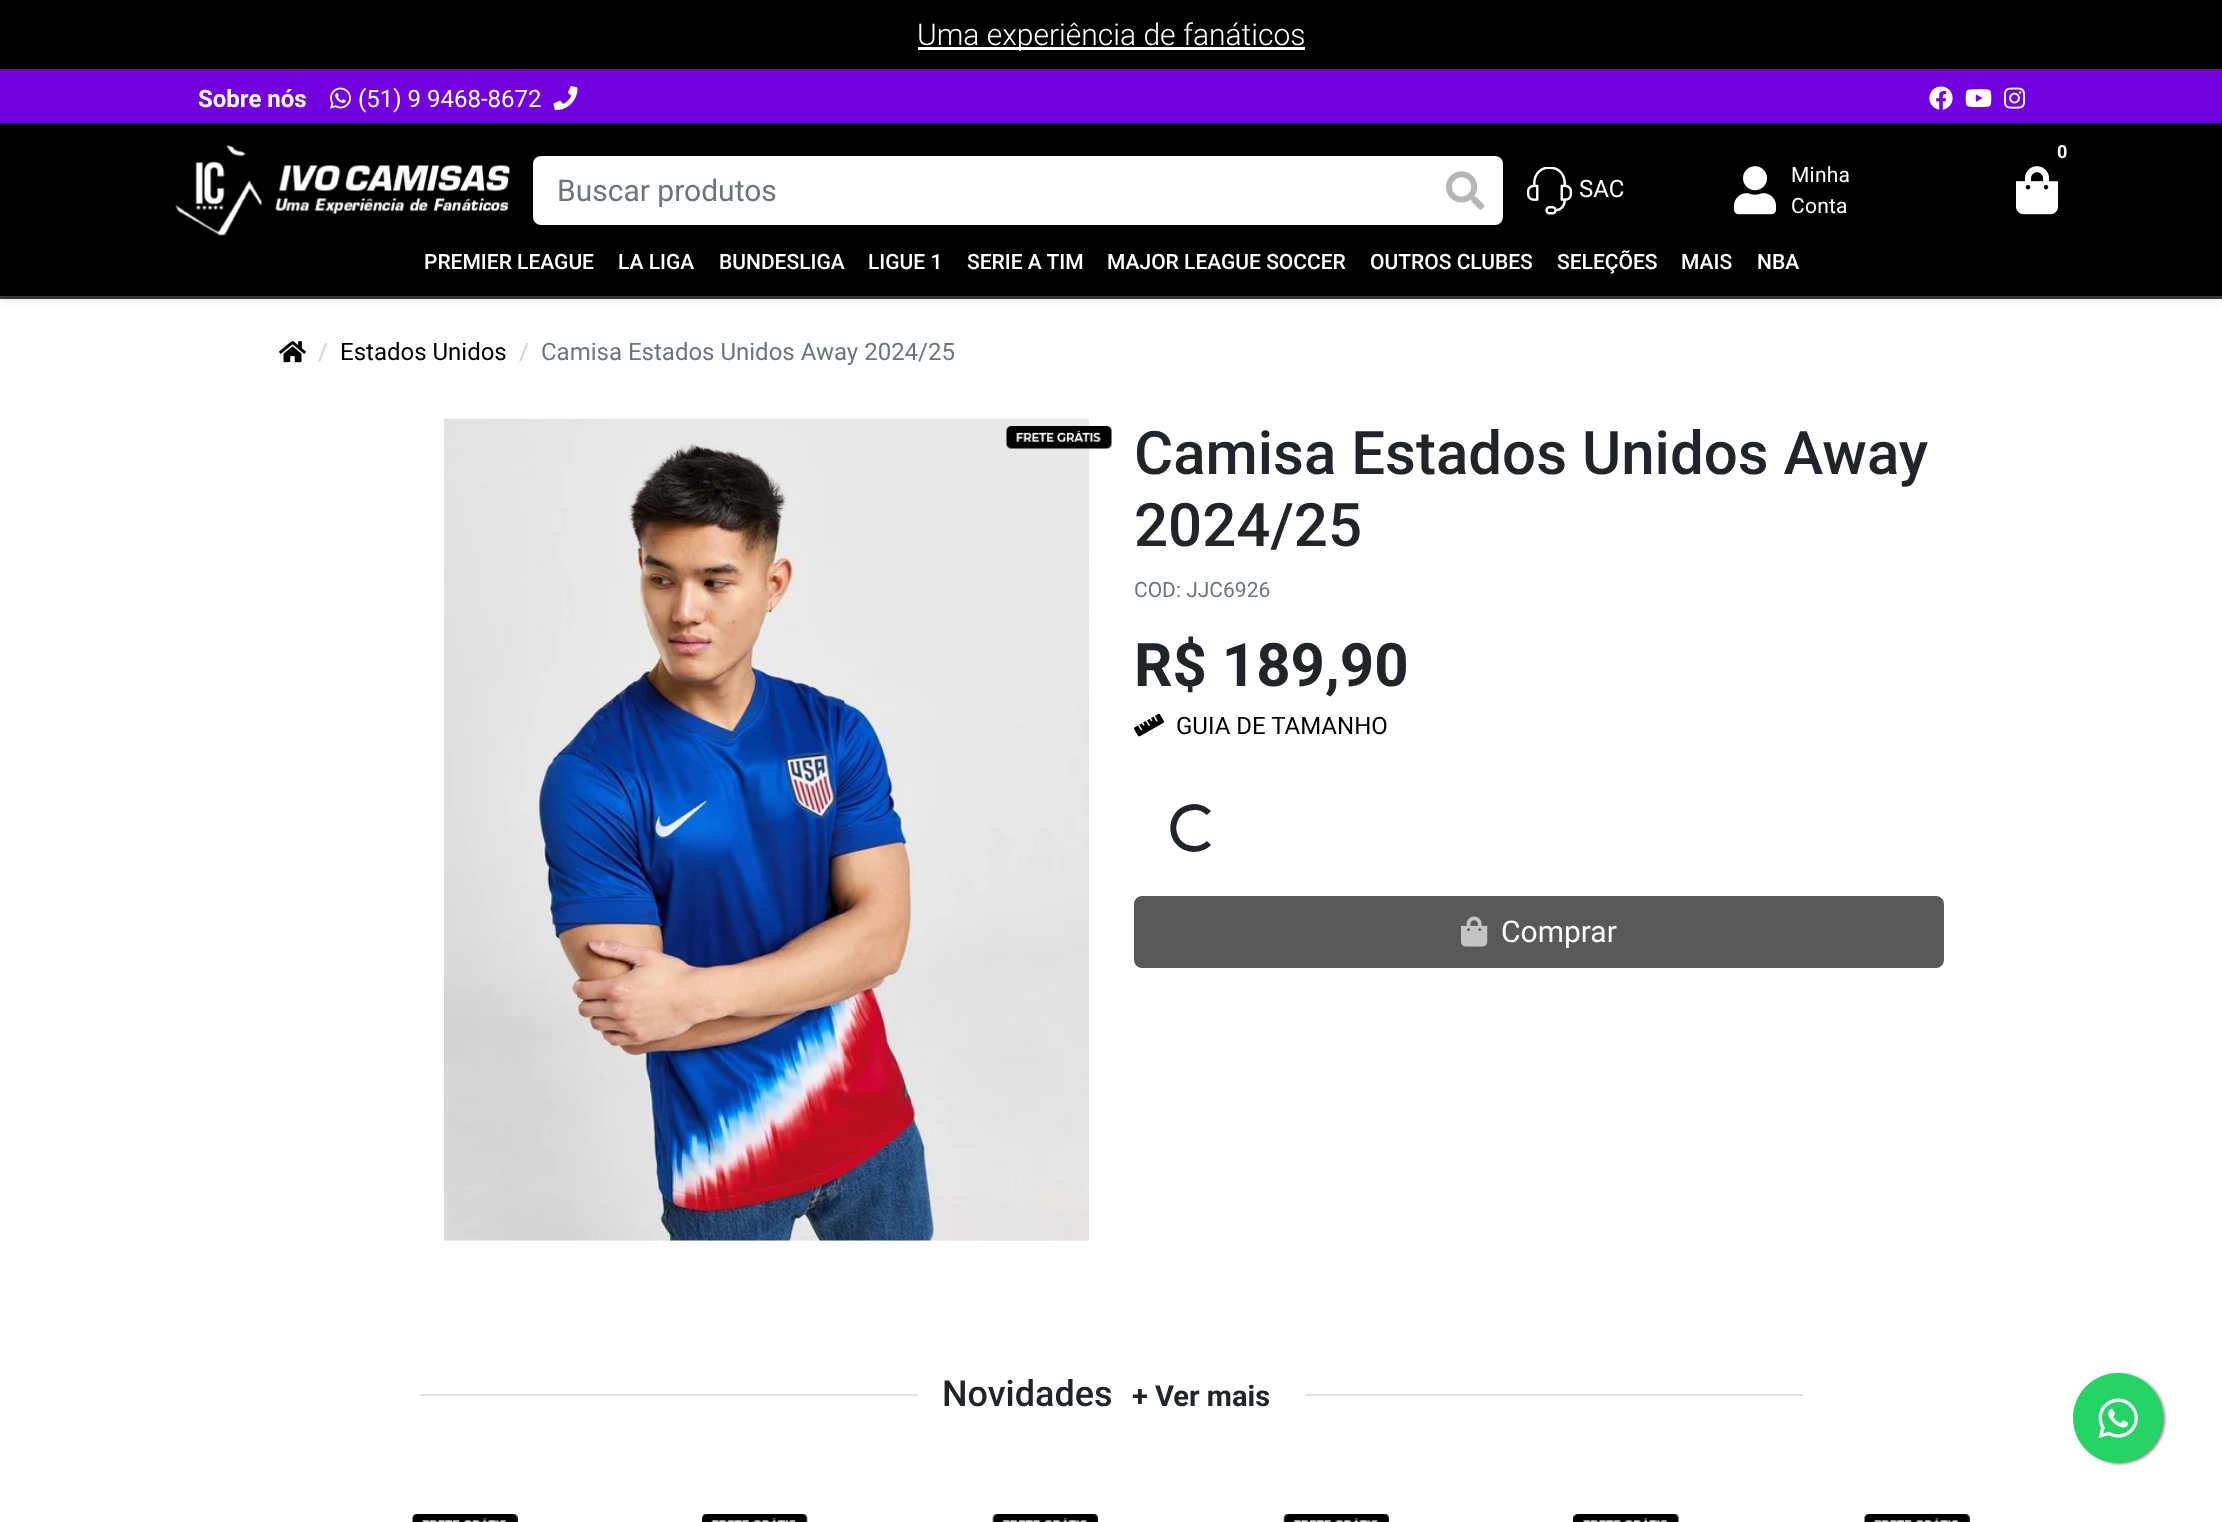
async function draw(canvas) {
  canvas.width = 2222
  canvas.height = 1522
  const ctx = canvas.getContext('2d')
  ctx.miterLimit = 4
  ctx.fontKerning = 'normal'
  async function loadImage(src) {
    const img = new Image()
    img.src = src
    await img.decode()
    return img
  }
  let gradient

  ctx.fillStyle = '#fff'
  ctx.fillRect(0, 0, 2222, 1522)
  ctx.fillStyle = '#7200dd'
  ctx.fillRect(0, 69, 2222, 54)
  ctx.fillStyle = '#000'
  ctx.fillRect(0, 0, 2222, 69)
  ctx.fillStyle = '#fff'
  ctx.fillRect(918, 47, 387, 3)
  ctx.font = '300 30px Roboto'
  ctx.fillText('Uma experiência de fanáticos', 917, 45)
  ctx.font = 'bold 24px Roboto'
  ctx.fillText('Sobre nós', 198, 107)
  ctx.drawImage(await loadImage('image0.png'), 330, 87, 21, 22)
  ctx.font = '24px Roboto'
  ctx.fillText('(51) 9 9468-8672', 358, 107)
  ctx.drawImage(await loadImage('image1.png'), 553, 86, 25, 25)
  ctx.drawImage(await loadImage('image2.png'), 1929, 86, 24, 24)
  ctx.drawImage(await loadImage('image3.png'), 1965, 89, 27, 19)
  ctx.drawImage(await loadImage('image4.png'), 2004, 87, 21, 22)
  ctx.fillStyle = '#00000012'
  ctx.filter = 'blur(3px)'
  ctx.beginPath()
  ctx.rect(0, 126, 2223, 176)
  ctx.fill()
  ctx.filter = 'none'
  ctx.fillStyle = '#000'
  ctx.fillRect(0, 123, 2222, 173)
  ctx.fillStyle = '#363636'
  ctx.fillRect(0, 296, 2222, 3)
  ctx.drawImage(await loadImage('image5.png'), 175, 145, 335, 91)
  ctx.fillStyle = '#fff'
  ctx.beginPath()
  ctx.roundRect(533, 156, 970, 69, 8)
  ctx.fill()
  ctx.font = '30px Roboto'
  ctx.fillStyle = '#6c757d'
  ctx.fillText('Buscar produtos', 557, 201)
  ctx.drawImage(await loadImage('image6.png'), 1446, 171, 39, 39)
  ctx.font = 'bold 18px Roboto'
  ctx.fillStyle = '#fff'
  ctx.fillText('0', 2057, 158)
  ctx.drawImage(await loadImage('image7.png'), 2016, 166, 42, 49)
  ctx.drawImage(await loadImage('image8.png'), 1526, 167, 47, 48)
  ctx.font = '24px Roboto'
  ctx.fillText('SAC', 1579, 197)
  ctx.drawImage(await loadImage('image9.png'), 1734, 166, 42, 49)
  ctx.letterSpacing = '0.25px'
  ctx.font = '21px Roboto'
  ctx.fillText('Minha', 1791, 182)
  ctx.fillText('Conta', 1791, 213)
  ctx.letterSpacing = '0px'
  ctx.font = '500 21px Roboto'
  ctx.fillText('PREMIER LEAGUE', 424, 269)
  ctx.fillText('LA LIGA', 618, 269)
  ctx.fillText('BUNDESLIGA', 719, 269)
  ctx.fillText('LIGUE 1', 868, 269)
  ctx.fillText('SERIE A TIM', 967, 269)
  ctx.fillText('MAJOR LEAGUE SOCCER', 1107, 269)
  ctx.fillText('OUTROS CLUBES', 1370, 269)
  ctx.fillText('SELEÇÕES', 1557, 269)
  ctx.fillText('MAIS', 1681, 269)
  ctx.fillText('NBA', 1757, 269)
  ctx.drawImage(await loadImage('image10.png'), 279, 341, 27, 22)
  ctx.font = '24px Roboto'
  ctx.fillStyle = '#ced4da'
  ctx.fillText('/', 318, 360)
  ctx.fillStyle = '#000'
  ctx.fillText('Estados Unidos', 340, 360)
  ctx.fillStyle = '#ced4da'
  ctx.fillText('/', 519, 360)
  ctx.fillStyle = '#6c757d'
  ctx.fillText('Camisa Estados Unidos Away 2024/25', 541, 360)
  gradient = ctx.createLinearGradient(551, 1291, 1412, -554)
  gradient.addColorStop(0.2, '#f8f9fa')
  gradient.addColorStop(1, '#6c757d')
  ctx.fillStyle = gradient
  ctx.fillRect(444, 1240, 645, 1)
  ctx.drawImage(await loadImage('image11.png'), 444, 418, 645, 823)
  ctx.drawImage(await loadImage('image12.png'), 1006, 426, 106, 23)
  ctx.font = '500 60px Roboto'
  ctx.fillStyle = '#212529'
  ctx.fillText('Camisa Estados Unidos Away', 1134, 474)
  ctx.fillText('2024/25', 1134, 546)
  ctx.font = '21px Roboto'
  ctx.fillStyle = '#6c757d'
  ctx.fillText('COD: JJC6926', 1134, 597)
  ctx.font = 'bold 60px Roboto'
  ctx.fillStyle = '#212529'
  ctx.fillText('R$ 189,90', 1134, 686)
  ctx.drawImage(await loadImage('image13.png'), 1134, 713, 30, 24)
  ctx.font = '24px Roboto'
  ctx.fillStyle = '#000'
  ctx.fillText('GUIA DE TAMANHO', 1176, 734)
  ctx.beginPath()
  ctx.moveTo(1209, 843)
  ctx.bezierCurveTo(1205, 847, 1199.5, 849, 1194, 849)
  ctx.bezierCurveTo(1169, 849, 1165.5, 812.5, 1190, 807.5)
  ctx.bezierCurveTo(1196.5, 806, 1204, 808, 1209, 813)
  ctx.strokeStyle = '#212529'
  ctx.lineWidth = 6
  ctx.stroke()
  ctx.fillStyle = '#595959'
  ctx.beginPath()
  ctx.roundRect(1135, 897, 808, 70, 7)
  ctx.fill()
  ctx.strokeStyle = '#595959'
  ctx.lineWidth = 2
  ctx.stroke()
  ctx.drawImage(await loadImage('image14.png'), 1461, 916, 27, 31)
  ctx.font = '30px Roboto'
  ctx.fillStyle = '#fff'
  ctx.fillText('Comprar', 1501, 942)
  ctx.fillStyle = '#dee2e6'
  ctx.fillRect(420, 1394, 1383, 2)
  ctx.fillStyle = '#fff'
  ctx.fillRect(918, 1394, 387, 2)
  ctx.font = '500 36px Roboto'
  ctx.fillStyle = '#212529'
  ctx.fillText('Novidades', 942, 1406)
  ctx.font = 'bold 29px Roboto'
  ctx.fillText('+ Ver mais', 1132, 1406)
  ctx.drawImage(await loadImage('image15.png'), 412, 1514, 106, 8)
  ctx.drawImage(await loadImage('image16.png'), 702, 1514, 106, 8)
  ctx.drawImage(await loadImage('image17.png'), 992, 1514, 106, 8)
  ctx.drawImage(await loadImage('image17.png'), 1283, 1514, 106, 8)
  ctx.drawImage(await loadImage('image18.png'), 1573, 1514, 107, 8)
  ctx.drawImage(await loadImage('image15.png'), 1864, 1514, 106, 8)
  ctx.fillStyle = '#888'
  ctx.filter = 'blur(1.5px)'
  ctx.beginPath()
  ctx.roundRect(2075, 1374, 90, 90, 45)
  ctx.fill()
  ctx.filter = 'none'
  ctx.fillStyle = '#25d366'
  ctx.beginPath()
  ctx.arc(2118, 1418, 45, 0, 2 * Math.PI)
  ctx.fill()
  ctx.drawImage(await loadImage('image19.png'), 2098, 1398, 40, 40)
}

draw(document.querySelector('canvas'))
